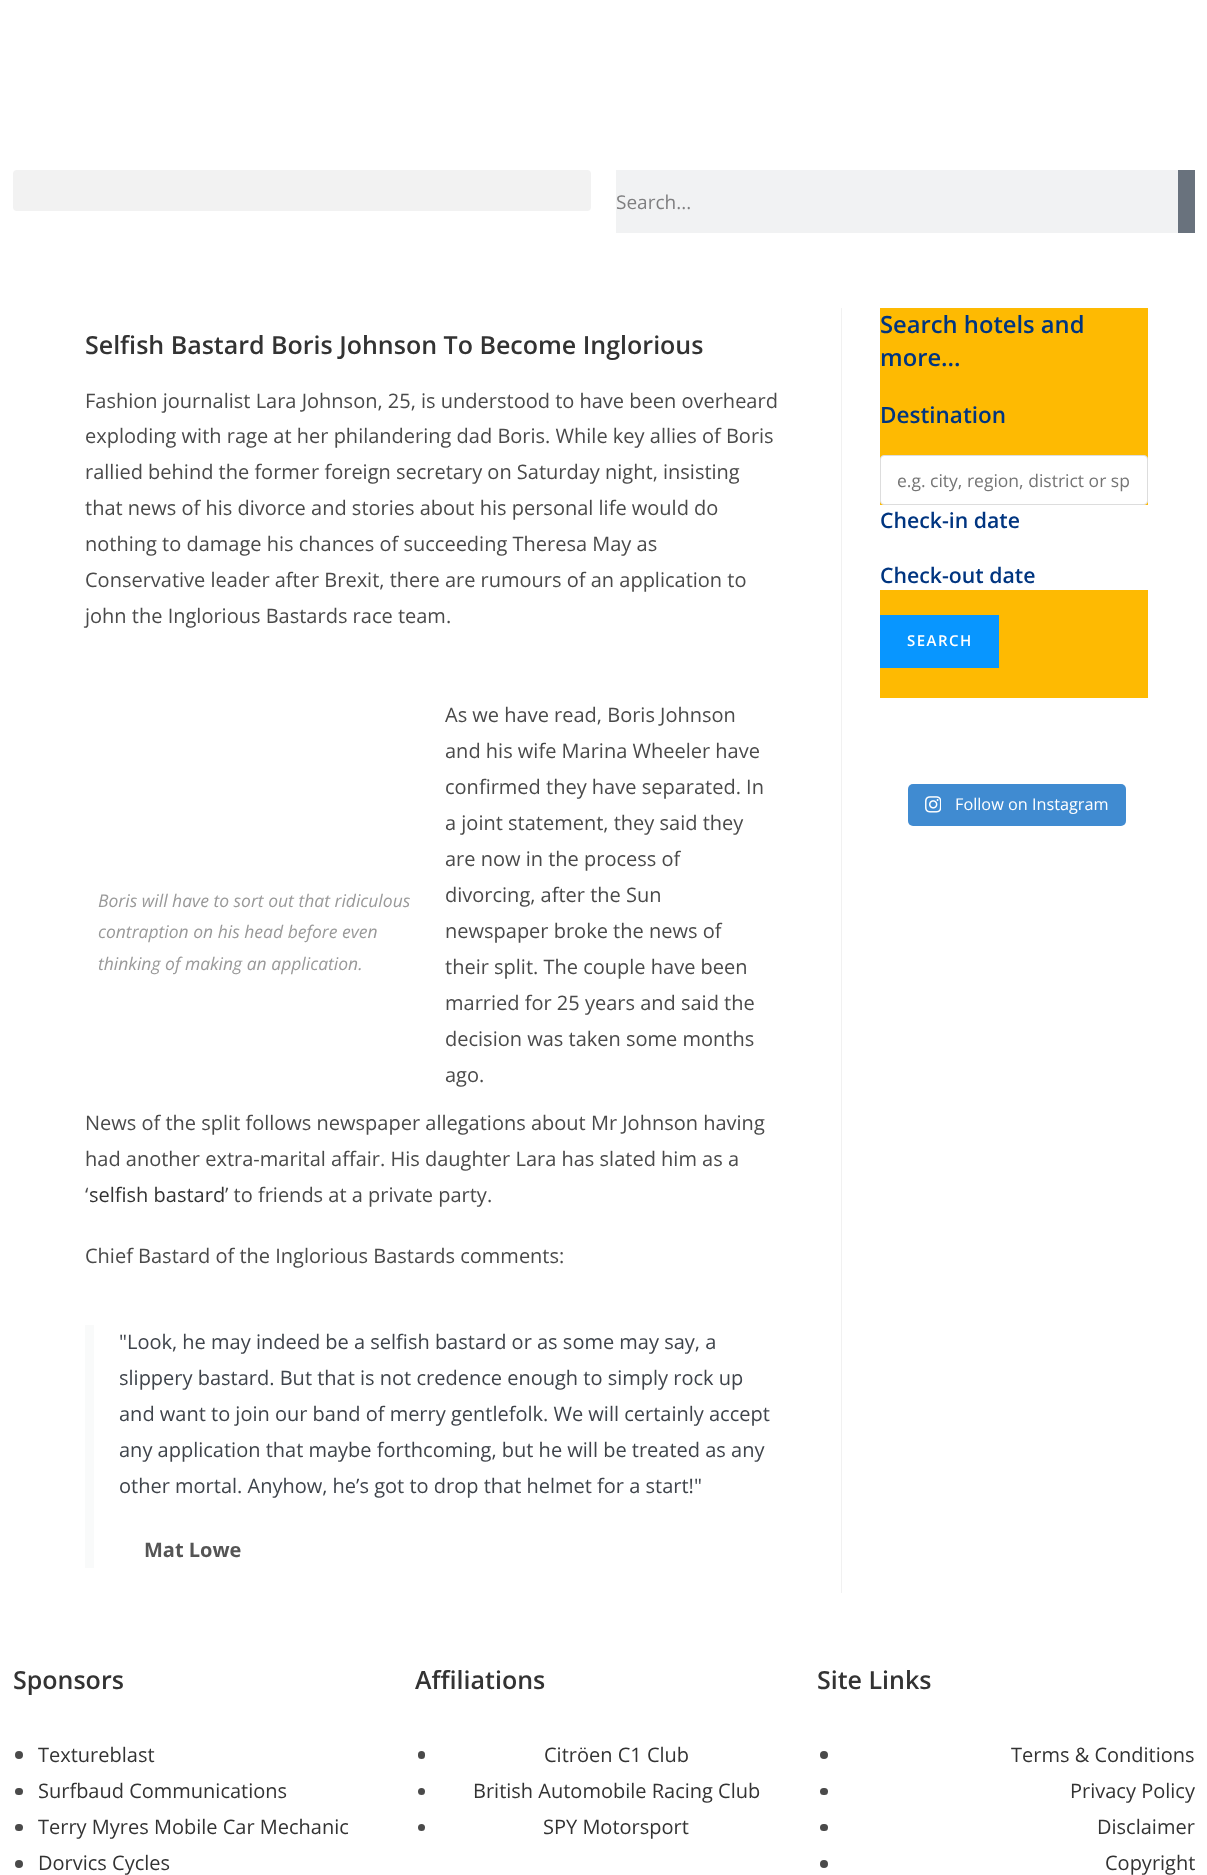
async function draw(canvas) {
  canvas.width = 1207
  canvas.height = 1875
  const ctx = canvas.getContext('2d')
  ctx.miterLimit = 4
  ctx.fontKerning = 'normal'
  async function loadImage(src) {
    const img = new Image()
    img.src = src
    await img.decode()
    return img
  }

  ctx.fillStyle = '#fff'
  ctx.fillRect(0, 0, 1207, 1875)
  ctx.fillStyle = '#f2f2f2'
  ctx.beginPath()
  ctx.roundRect(13, 170, 578, 41, 4)
  ctx.fill()
  ctx.fillStyle = '#f1f2f3'
  ctx.fillRect(616, 170, 562, 63)
  ctx.font = '19px Open Sans'
  ctx.fillStyle = '#7f7f80'
  ctx.fillText('Search...', 616, 209)
  ctx.fillStyle = '#69727d'
  ctx.fillRect(1178, 170, 17, 63)
  ctx.fillStyle = '#f1f1f1'
  ctx.fillRect(841, 308, 1, 1285)
  ctx.font = '600 25px Open Sans'
  ctx.fillStyle = '#333'
  ctx.fillText('Selfish Bastard Boris Johnson To Become Inglorious', 85, 354)
  ctx.font = '20px Open Sans'
  ctx.fillStyle = '#4a4a4a'
  ctx.fillText('Fashion journalist Lara Johnson, 25, is understood to have been overheard', 85, 408)
  ctx.fillText('exploding with rage at her philandering dad Boris. While key allies of Boris', 85, 443)
  ctx.fillText('rallied behind the former foreign secretary on Saturday night, insisting', 85, 479)
  ctx.fillText('that news of his divorce and stories about his personal life would do', 85, 515)
  ctx.fillText('nothing to damage his chances of succeeding Theresa May as', 85, 551)
  ctx.fillText('Conservative leader after Brexit, there are rumours of an application to', 85, 587)
  ctx.fillText('john the Inglorious Bastards race team.', 85, 623)
  ctx.font = 'italic 17.5px Open Sans'
  ctx.fillStyle = '#999'
  ctx.fillText('Boris will have to sort out that ridiculous', 98, 907)
  ctx.fillText('contraption on his head before even', 98, 938)
  ctx.fillText('thinking of making an application.', 98, 970)
  ctx.font = '20px Open Sans'
  ctx.fillStyle = '#4a4a4a'
  ctx.fillText('As we have read, Boris Johnson', 445, 722)
  ctx.fillText('and his wife Marina Wheeler have', 445, 758)
  ctx.fillText('confirmed they have separated. In', 445, 794)
  ctx.fillText('a joint statement, they said they', 445, 830)
  ctx.fillText('are now in the process of', 445, 866)
  ctx.fillText('divorcing, after the Sun', 445, 902)
  ctx.fillText('newspaper broke the news of', 445, 938)
  ctx.fillText('their split. The couple have been', 445, 974)
  ctx.fillText('married for 25 years and said the', 445, 1010)
  ctx.fillText('decision was taken some months', 445, 1046)
  ctx.fillText('ago.', 445, 1082)
  ctx.fillText('News of the split follows newspaper allegations about Mr Johnson having', 85, 1130)
  ctx.fillText('had another extra-marital affair. His daughter Lara has slated him as a', 85, 1166)
  ctx.fillText('‘', 85, 1202)
  ctx.fillStyle = '#333'
  ctx.fillText('selfish bastard', 89, 1202)
  ctx.fillStyle = '#4a4a4a'
  ctx.fillText('’ to friends at a private party.', 225, 1202)
  ctx.fillText('Chief Bastard of the Inglorious Bastards comments:', 85, 1263)
  ctx.fillStyle = '#f9fafa'
  ctx.fillRect(85, 1325, 9, 243)
  ctx.fillStyle = '#3f444b'
  ctx.fillText('"Look, he may indeed be a selfish bastard or as some may say, a', 119, 1349)
  ctx.fillText('slippery bastard. But that is not credence enough to simply rock up', 119, 1385)
  ctx.fillText('and want to join our band of merry gentlefolk. We will certainly accept', 119, 1421)
  ctx.fillText('any application that maybe forthcoming, but he will be treated as any', 119, 1457)
  ctx.fillText('other mortal. Anyhow, he’s got to drop that helmet for a start!"', 119, 1493)
  ctx.font = 'bold 20px Open Sans'
  ctx.fillStyle = '#555'
  ctx.fillText('Mat Lowe', 144, 1557)
  ctx.fillStyle = '#feba02'
  ctx.fillRect(880, 308, 268, 390)
  ctx.font = '600 23.75px Open Sans'
  ctx.fillStyle = '#003580'
  ctx.fillText('Search hotels and', 880, 333)
  ctx.fillText('more...', 880, 366)
  ctx.font = '600 22.5px Open Sans'
  ctx.fillText('Destination', 880, 423)
  ctx.fillStyle = '#fff'
  ctx.beginPath()
  ctx.roundRect(880.5, 455.5, 267, 49, 3.5)
  ctx.fill()
  ctx.strokeStyle = '#ddd'
  ctx.stroke()
  ctx.font = '17.5px Open Sans'
  ctx.fillStyle = '#757575'
  ctx.fillText('e.g. city, region, district or sp', 897, 487)
  ctx.fillStyle = '#fff'
  ctx.fillRect(880, 505, 268, 85)
  ctx.font = '600 21.25px Open Sans'
  ctx.fillStyle = '#003580'
  ctx.fillText('Check-in date', 880, 528)
  ctx.fillText('Check-out date', 880, 583)
  ctx.fillStyle = '#0896ff'
  ctx.fillRect(880, 615, 119, 53)
  ctx.letterSpacing = '1.5px'
  ctx.font = '600 15px Open Sans'
  ctx.fillStyle = '#fff'
  ctx.fillText('SEARCH', 907, 646)
  ctx.fillStyle = '#408bd1'
  ctx.beginPath()
  ctx.roundRect(908, 784, 218, 42, 5)
  ctx.fill()
  ctx.drawImage(await loadImage('image0.png'), 925, 796, 16, 17)
  ctx.letterSpacing = '0px'
  ctx.font = '16.25px Open Sans'
  ctx.fillStyle = '#fff'
  ctx.fillText('Follow on Instagram', 955, 810)
  ctx.font = '600 25px Open Sans'
  ctx.fillStyle = '#333'
  ctx.fillText('Sponsors', 13, 1689)
  ctx.fillStyle = '#4a4a4a'
  ctx.beginPath()
  ctx.arc(19, 1755, 4, 0, 2 * Math.PI)
  ctx.fill()
  ctx.font = '20px Open Sans'
  ctx.fillStyle = '#333'
  ctx.fillText('Textureblast', 38, 1762)
  ctx.fillStyle = '#4a4a4a'
  ctx.beginPath()
  ctx.roundRect(15, 1788, 8, 7, 3.5)
  ctx.fill()
  ctx.fillStyle = '#333'
  ctx.fillText('Surfbaud Communications', 38, 1798)
  ctx.fillStyle = '#4a4a4a'
  ctx.beginPath()
  ctx.roundRect(15, 1824, 8, 7, 3.5)
  ctx.fill()
  ctx.fillStyle = '#333'
  ctx.fillText('Terry Myres Mobile Car Mechanic', 38, 1834)
  ctx.fillStyle = '#4a4a4a'
  ctx.beginPath()
  ctx.arc(19, 1864, 4, 0, 2 * Math.PI)
  ctx.fill()
  ctx.fillStyle = '#333'
  ctx.fillText('Dorvics Cycles', 38, 1870)
  ctx.font = '600 25px Open Sans'
  ctx.fillText('Affiliations', 415, 1689)
  ctx.fillStyle = '#4a4a4a'
  ctx.beginPath()
  ctx.roundRect(418, 1751, 7, 8, 3.5)
  ctx.fill()
  ctx.font = '20px Open Sans'
  ctx.fillStyle = '#333'
  ctx.fillText('Citröen C1 Club', 544, 1762)
  ctx.fillStyle = '#4a4a4a'
  ctx.beginPath()
  ctx.arc(421.5, 1791.5, 3.5, 0, 2 * Math.PI)
  ctx.fill()
  ctx.fillStyle = '#333'
  ctx.fillText('British Automobile Racing Club', 473, 1798)
  ctx.fillStyle = '#4a4a4a'
  ctx.beginPath()
  ctx.arc(421.5, 1827.5, 3.5, 0, 2 * Math.PI)
  ctx.fill()
  ctx.fillStyle = '#333'
  ctx.fillText('SPY Motorsport', 543, 1834)
  ctx.font = '600 25px Open Sans'
  ctx.fillText('Site Links', 817, 1689)
  ctx.fillStyle = '#4a4a4a'
  ctx.beginPath()
  ctx.arc(824, 1755, 4, 0, 2 * Math.PI)
  ctx.fill()
  ctx.font = '20px Open Sans'
  ctx.fillStyle = '#333'
  ctx.fillText('Terms & Conditions', 1011, 1762)
  ctx.fillStyle = '#4a4a4a'
  ctx.beginPath()
  ctx.roundRect(820, 1788, 8, 7, 3.5)
  ctx.fill()
  ctx.fillStyle = '#333'
  ctx.fillText('Privacy Policy', 1070, 1798)
  ctx.fillStyle = '#4a4a4a'
  ctx.beginPath()
  ctx.roundRect(820, 1824, 8, 7, 3.5)
  ctx.fill()
  ctx.fillStyle = '#333'
  ctx.fillText('Disclaimer', 1097, 1834)
  ctx.fillStyle = '#4a4a4a'
  ctx.beginPath()
  ctx.arc(824, 1864, 4, 0, 2 * Math.PI)
  ctx.fill()
  ctx.fillStyle = '#333'
  ctx.fillText('Copyright', 1105, 1870)
}

draw(document.querySelector('canvas'))
